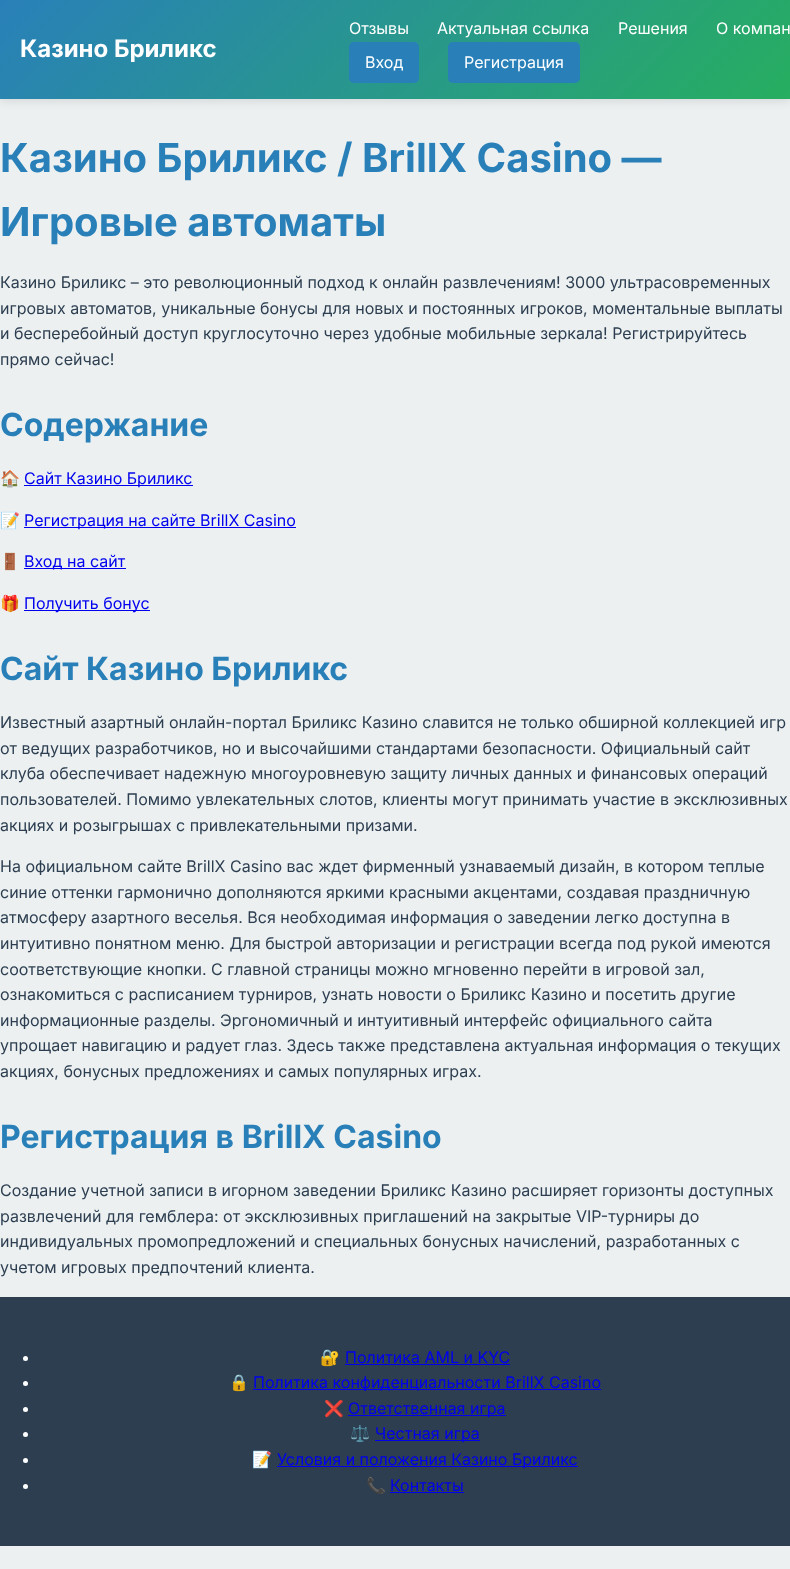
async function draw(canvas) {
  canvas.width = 790
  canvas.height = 1569
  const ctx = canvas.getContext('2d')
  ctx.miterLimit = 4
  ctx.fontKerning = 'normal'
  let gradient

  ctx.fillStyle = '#ecf0f1'
  ctx.fillRect(0, 0, 790, 1569)
  ctx.fillStyle = '#0000001a'
  ctx.filter = 'blur(5px)'
  ctx.beginPath()
  ctx.rect(0, 2, 790, 99)
  ctx.fill()
  ctx.filter = 'none'
  gradient = ctx.createLinearGradient(173, -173, 617, 272)
  gradient.addColorStop(0, '#2980b9')
  gradient.addColorStop(1, '#27ae60')
  ctx.fillStyle = gradient
  ctx.fillRect(0, 0, 790, 99)
  ctx.font = 'bold 24px Inter'
  ctx.fillStyle = '#fff'
  ctx.fillText('Казино Бриликс', 20, 57)
  ctx.font = '16px Inter'
  ctx.fillText('Отзывы', 349, 34)
  ctx.fillText('Актуальная ссылка', 437, 34)
  ctx.fillText('Решения', 618, 34)
  ctx.fillText('О компан', 716, 34)
  ctx.fillStyle = '#2980b9'
  ctx.beginPath()
  ctx.roundRect(349, 42, 70, 41, 5)
  ctx.fill()
  ctx.fillStyle = '#fff'
  ctx.fillText('Вход', 365, 68)
  ctx.fillStyle = '#2980b9'
  ctx.beginPath()
  ctx.roundRect(448, 42, 132, 41, 5)
  ctx.fill()
  ctx.fillStyle = '#fff'
  ctx.fillText('Регистрация', 464, 68)
  ctx.font = 'bold 40px Inter'
  ctx.fillStyle = '#2980b9'
  ctx.fillText('Казино Бриликс / BrillX Casino —', 0, 172)
  ctx.fillText('Игровые автоматы', 0, 236)
  ctx.font = '16px Inter'
  ctx.fillStyle = '#2c3e50'
  ctx.fillText('Казино Бриликс – это революционный подход к онлайн развлечениям! 3000 ультрасовременных', 0, 288)
  ctx.fillText('игровых автоматов, уникальные бонусы для новых и постоянных игроков, моментальные выплаты', 0, 314)
  ctx.fillText('и бесперебойный доступ круглосуточно через удобные мобильные зеркала! Регистрируйтесь', 0, 339)
  ctx.fillText('прямо сейчас!', 0, 365)
  ctx.font = 'bold 32px Inter'
  ctx.fillStyle = '#2980b9'
  ctx.fillText('Содержание', 0, 436)
  ctx.font = '16px Noto Color Emoji'
  ctx.fillStyle = '#2c3e50'
  ctx.fillText('🏠', 0, 484)
  ctx.fillStyle = '#00e'
  ctx.fillRect(24, 485, 169, 1)
  ctx.font = '16px Inter'
  ctx.fillText('Сайт Казино Бриликс', 24, 484)
  ctx.font = '16px Noto Color Emoji'
  ctx.fillStyle = '#2c3e50'
  ctx.fillText('📝', 0, 526)
  ctx.fillStyle = '#00e'
  ctx.fillRect(24, 527, 272, 1)
  ctx.font = '16px Inter'
  ctx.fillText('Регистрация на сайте BrillX Casino', 24, 526)
  ctx.font = '16px Noto Color Emoji'
  ctx.fillStyle = '#2c3e50'
  ctx.fillText('🚪', 0, 567)
  ctx.fillStyle = '#00e'
  ctx.fillRect(24, 568, 102, 1)
  ctx.font = '16px Inter'
  ctx.fillText('Вход на сайт', 24, 567)
  ctx.font = '16px Noto Color Emoji'
  ctx.fillStyle = '#2c3e50'
  ctx.fillText('🎁', 0, 609)
  ctx.fillStyle = '#00e'
  ctx.fillRect(24, 610, 126, 1)
  ctx.font = '16px Inter'
  ctx.fillText('Получить бонус', 24, 609)
  ctx.font = 'bold 32px Inter'
  ctx.fillStyle = '#2980b9'
  ctx.fillText('Сайт Казино Бриликс', 0, 680)
  ctx.font = '16px Inter'
  ctx.fillStyle = '#2c3e50'
  ctx.fillText('Известный азартный онлайн-портал Бриликс Казино славится не только обширной коллекцией игр', 0, 728)
  ctx.fillText('от ведущих разработчиков, но и высочайшими стандартами безопасности. Официальный сайт', 0, 754)
  ctx.fillText('клуба обеспечивает надежную многоуровневую защиту личных данных и финансовых операций', 0, 779)
  ctx.fillText('пользователей. Помимо увлекательных слотов, клиенты могут принимать участие в эксклюзивных', 0, 805)
  ctx.fillText('акциях и розыгрышах с привлекательными призами.', 0, 831)
  ctx.fillText('На официальном сайте BrillX Casino вас ждет фирменный узнаваемый дизайн, в котором теплые', 0, 872)
  ctx.fillText('синие оттенки гармонично дополняются яркими красными акцентами, создавая праздничную', 0, 898)
  ctx.fillText('атмосферу азартного веселья. Вся необходимая информация о заведении легко доступна в', 0, 923)
  ctx.fillText('интуитивно понятном меню. Для быстрой авторизации и регистрации всегда под рукой имеются', 0, 949)
  ctx.fillText('соответствующие кнопки. С главной страницы можно мгновенно перейти в игровой зал,', 0, 975)
  ctx.fillText('ознакомиться с расписанием турниров, узнать новости о Бриликс Казино и посетить другие', 0, 1000)
  ctx.fillText('информационные разделы. Эргономичный и интуитивный интерфейс официального сайта', 0, 1026)
  ctx.fillText('упрощает навигацию и радует глаз. Здесь также представлена актуальная информация о текущих', 0, 1051)
  ctx.fillText('акциях, бонусных предложениях и самых популярных играх.', 0, 1077)
  ctx.font = 'bold 32px Inter'
  ctx.fillStyle = '#2980b9'
  ctx.fillText('Регистрация в BrillX Casino', 0, 1148)
  ctx.font = '16px Inter'
  ctx.fillStyle = '#2c3e50'
  ctx.fillText('Создание учетной записи в игорном заведении Бриликс Казино расширяет горизонты доступных', 0, 1196)
  ctx.fillText('развлечений для гемблера: от эксклюзивных приглашений на закрытые VIP-турниры до', 0, 1222)
  ctx.fillText('индивидуальных промопредложений и специальных бонусных начислений, разработанных с', 0, 1247)
  ctx.fillText('учетом игровых предпочтений клиента.', 0, 1273)
  ctx.fillRect(0, 1297, 790, 249)
  ctx.fillStyle = '#fff'
  ctx.beginPath()
  ctx.arc(25.5, 1358.5, 2.5, 0, 2 * Math.PI)
  ctx.fill()
  ctx.font = '16px Noto Color Emoji'
  ctx.fillText('🔐', 320, 1363)
  ctx.font = '16px Inter'
  ctx.fillStyle = '#00e'
  ctx.fillText('Политика AML и KYC', 345, 1363)
  ctx.fillRect(345, 1364, 165, 1)
  ctx.fillStyle = '#fff'
  ctx.beginPath()
  ctx.arc(25.5, 1383.5, 2.5, 0, 2 * Math.PI)
  ctx.fill()
  ctx.font = '16px Noto Color Emoji'
  ctx.fillText('🔒', 229, 1388)
  ctx.fillStyle = '#00e'
  ctx.fillRect(253, 1389, 348, 1)
  ctx.font = '16px Inter'
  ctx.fillText('Политика конфиденциальности BrillX Casino', 253, 1388)
  ctx.fillStyle = '#fff'
  ctx.beginPath()
  ctx.arc(25.5, 1409.5, 2.5, 0, 2 * Math.PI)
  ctx.fill()
  ctx.font = '16px Noto Color Emoji'
  ctx.fillText('❌', 324, 1414)
  ctx.fillStyle = '#00e'
  ctx.fillRect(348, 1415, 158, 1)
  ctx.font = '16px Inter'
  ctx.fillText('Ответственная игра', 348, 1414)
  ctx.fillStyle = '#fff'
  ctx.beginPath()
  ctx.arc(25.5, 1434.5, 2.5, 0, 2 * Math.PI)
  ctx.fill()
  ctx.font = '16px Noto Color Emoji'
  ctx.fillText('⚖️', 350, 1439)
  ctx.fillStyle = '#00e'
  ctx.fillRect(375, 1440, 105, 1)
  ctx.font = '16px Inter'
  ctx.fillText('Честная игра', 375, 1439)
  ctx.fillStyle = '#fff'
  ctx.beginPath()
  ctx.arc(25.5, 1460.5, 2.5, 0, 2 * Math.PI)
  ctx.fill()
  ctx.font = '16px Noto Color Emoji'
  ctx.fillText('📝', 252, 1465)
  ctx.fillStyle = '#00e'
  ctx.fillRect(277, 1466, 301, 1)
  ctx.font = '16px Inter'
  ctx.fillText('Условия и положения Казино Бриликс', 277, 1465)
  ctx.fillStyle = '#fff'
  ctx.beginPath()
  ctx.arc(25.5, 1486.5, 2.5, 0, 2 * Math.PI)
  ctx.fill()
  ctx.font = '16px Noto Color Emoji'
  ctx.fillText('📞', 366, 1491)
  ctx.font = '16px Inter'
  ctx.fillStyle = '#00e'
  ctx.fillText('Контакты', 390, 1491)
  ctx.fillRect(390, 1492, 74, 1)
}

draw(document.querySelector('canvas'))
